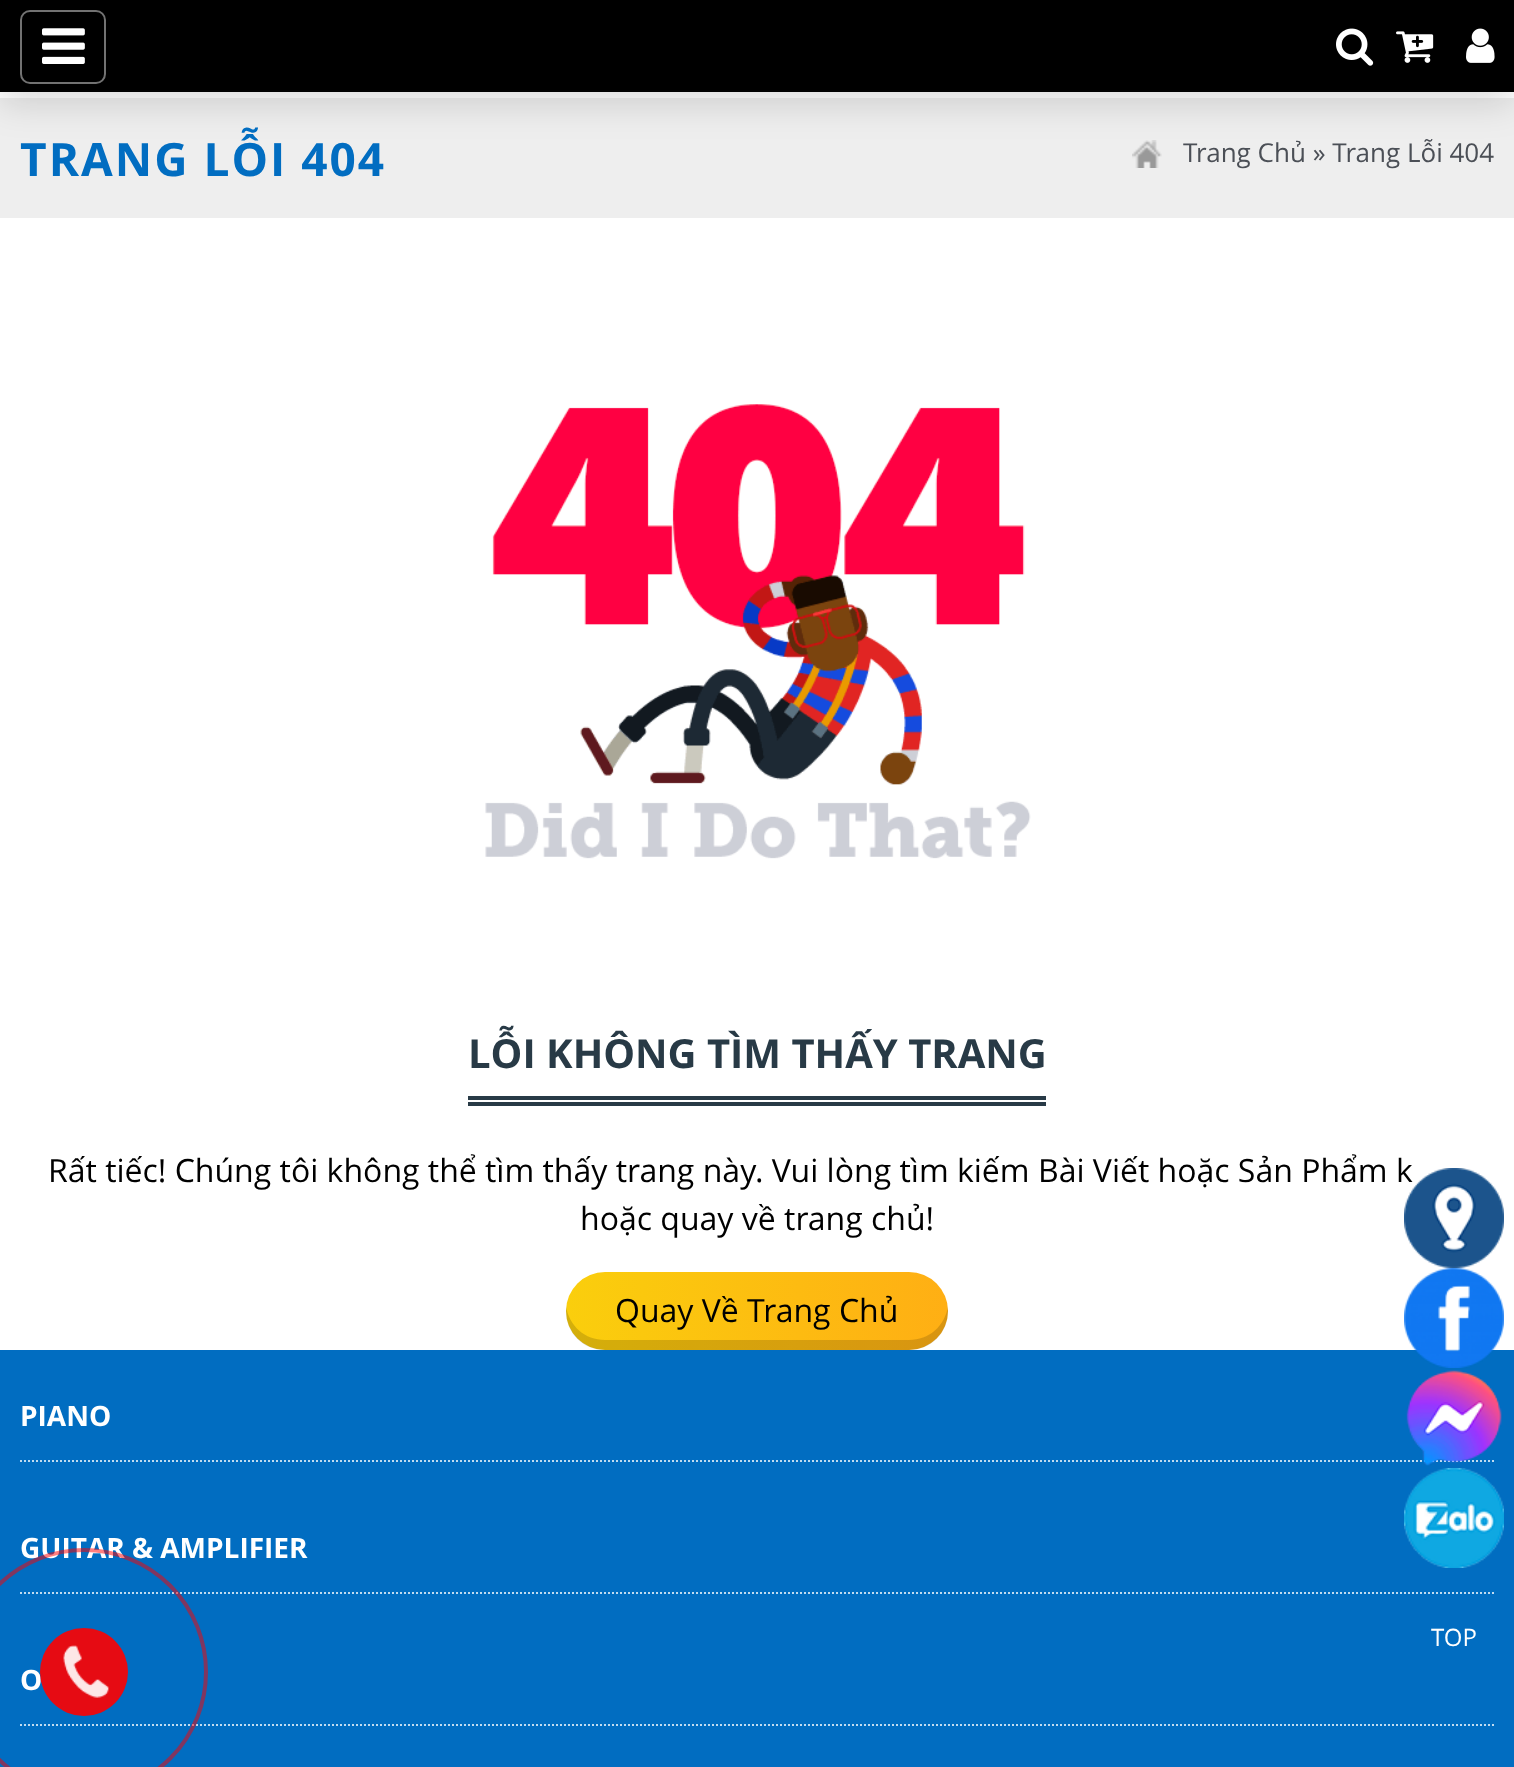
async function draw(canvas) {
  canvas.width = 1514
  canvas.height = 1767
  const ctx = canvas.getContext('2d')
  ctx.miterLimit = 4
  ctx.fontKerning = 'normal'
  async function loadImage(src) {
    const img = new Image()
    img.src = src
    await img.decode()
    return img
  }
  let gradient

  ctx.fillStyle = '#fff'
  ctx.fillRect(0, 0, 1514, 1767)
  ctx.fillStyle = '#eee'
  ctx.fillRect(0, 98, 1514, 120)
  ctx.drawImage(await loadImage('image4.png'), 1132, 140, 30, 28)
  ctx.fillStyle = '#00000026'
  ctx.filter = 'blur(18px)'
  ctx.beginPath()
  ctx.rect(0, 10, 1514, 92)
  ctx.fill()
  ctx.filter = 'none'
  ctx.fillStyle = '#000'
  ctx.fillRect(0, 0, 1514, 92)
  ctx.beginPath()
  ctx.roundRect(21, 11, 84, 72, 9)
  ctx.strokeStyle = '#727272'
  ctx.lineWidth = 2
  ctx.stroke()
  ctx.drawImage(await loadImage('image0.png'), 42, 28, 43, 36)
  ctx.drawImage(await loadImage('image1.png'), 1336, 28, 38, 38)
  ctx.drawImage(await loadImage('image2.png'), 1396, 31, 38, 32)
  ctx.drawImage(await loadImage('image3.png'), 1466, 28, 29, 35)
  ctx.letterSpacing = '2px'
  ctx.font = 'bold 46px Open Sans'
  ctx.fillStyle = '#016dc1'
  ctx.fillText('TRANG LỖI 404', 20, 176)
  ctx.letterSpacing = '0px'
  ctx.font = '26px Open Sans'
  ctx.fillStyle = '#4b4f56'
  ctx.fillText('Trang Chủ » Trang Lỗi 404', 1183, 162)
  ctx.drawImage(await loadImage('image5.png'), 485, 404, 546, 455)
  ctx.fillStyle = '#283a46'
  ctx.fillRect(468, 1096, 578, 4)
  ctx.fillRect(468, 1102, 578, 4)
  ctx.font = 'bold 40px Open Sans'
  ctx.fillText('LỖI KHÔNG TÌM THẤY TRANG', 468, 1068)
  ctx.font = '32px Open Sans'
  ctx.fillStyle = '#000'
  ctx.fillText('Rất tiếc! Chúng tôi không thể tìm thấy trang này. Vui lòng tìm kiếm Bài Viết hoặc Sản Phẩm k', 48, 1182)
  ctx.fillText('hoặc quay về trang chủ!', 580, 1230)
  gradient = ctx.createLinearGradient(486, 1311, 956, 1311)
  gradient.addColorStop(0, '#f9d50b')
  gradient.addColorStop(1, '#ffae14')
  ctx.fillStyle = gradient
  ctx.beginPath()
  ctx.roundRect(566, 1272, 382, 78, 39)
  ctx.fill()
  ctx.fillStyle = '#00000026'
  ctx.beginPath()
  ctx.moveTo(566, 1306)
  ctx.lineTo(566, 1311)
  ctx.bezierCurveTo(566, 1333, 583, 1350, 605, 1350)
  ctx.lineTo(909, 1350)
  ctx.bezierCurveTo(931, 1350, 948, 1333, 948, 1311)
  ctx.lineTo(948, 1306)
  ctx.bezierCurveTo(945, 1326, 929, 1340, 909, 1340)
  ctx.lineTo(605, 1340)
  ctx.bezierCurveTo(585, 1340, 569, 1326, 566, 1306)
  ctx.closePath()
  ctx.fill()
  ctx.fillStyle = '#000'
  ctx.fillText('Quay Về Trang Chủ', 615, 1322)
  ctx.fillStyle = '#016dc1'
  ctx.fillRect(0, 1350, 1514, 417)
  ctx.beginPath()
  ctx.moveTo(20, 1461)
  ctx.lineTo(1494, 1461)
  ctx.strokeStyle = '#c0dbf0'
  ctx.setLineDash([2, 2])
  ctx.stroke()
  ctx.font = 'bold 28px Open Sans'
  ctx.fillStyle = '#fff'
  ctx.fillText('PIANO', 20, 1426)
  ctx.beginPath()
  ctx.moveTo(20, 1593)
  ctx.lineTo(1494, 1593)
  ctx.stroke()
  ctx.fillText('GUITAR & AMPLIFIER', 20, 1558)
  ctx.beginPath()
  ctx.moveTo(20, 1725)
  ctx.lineTo(1494, 1725)
  ctx.stroke()
  ctx.fillText('O', 20, 1690)
  ctx.drawImage(await loadImage('image6.png'), 1404, 1168, 100, 100)
  ctx.drawImage(await loadImage('image7.png'), 1404, 1268, 100, 100)
  ctx.drawImage(await loadImage('image8.png'), 1406, 1370, 96, 96)
  ctx.drawImage(await loadImage('image9.png'), 1404, 1468, 100, 100)
  ctx.beginPath()
  ctx.arc(84, 1672, 122, 0, 2 * Math.PI)
  ctx.strokeStyle = '#ff000080'
  ctx.lineWidth = 4
  ctx.setLineDash([])
  ctx.stroke()
  ctx.fillStyle = '#ff0000e6'
  ctx.beginPath()
  ctx.arc(84, 1672, 44, 0, 2 * Math.PI)
  ctx.fill()
  ctx.drawImage(await loadImage('image10.png'), 63, 1645, 46, 53)
  ctx.font = '24px Open Sans'
  ctx.fillStyle = '#fff'
  ctx.fillText('TOP', 1431, 1646)
}

draw(document.querySelector('canvas'))
